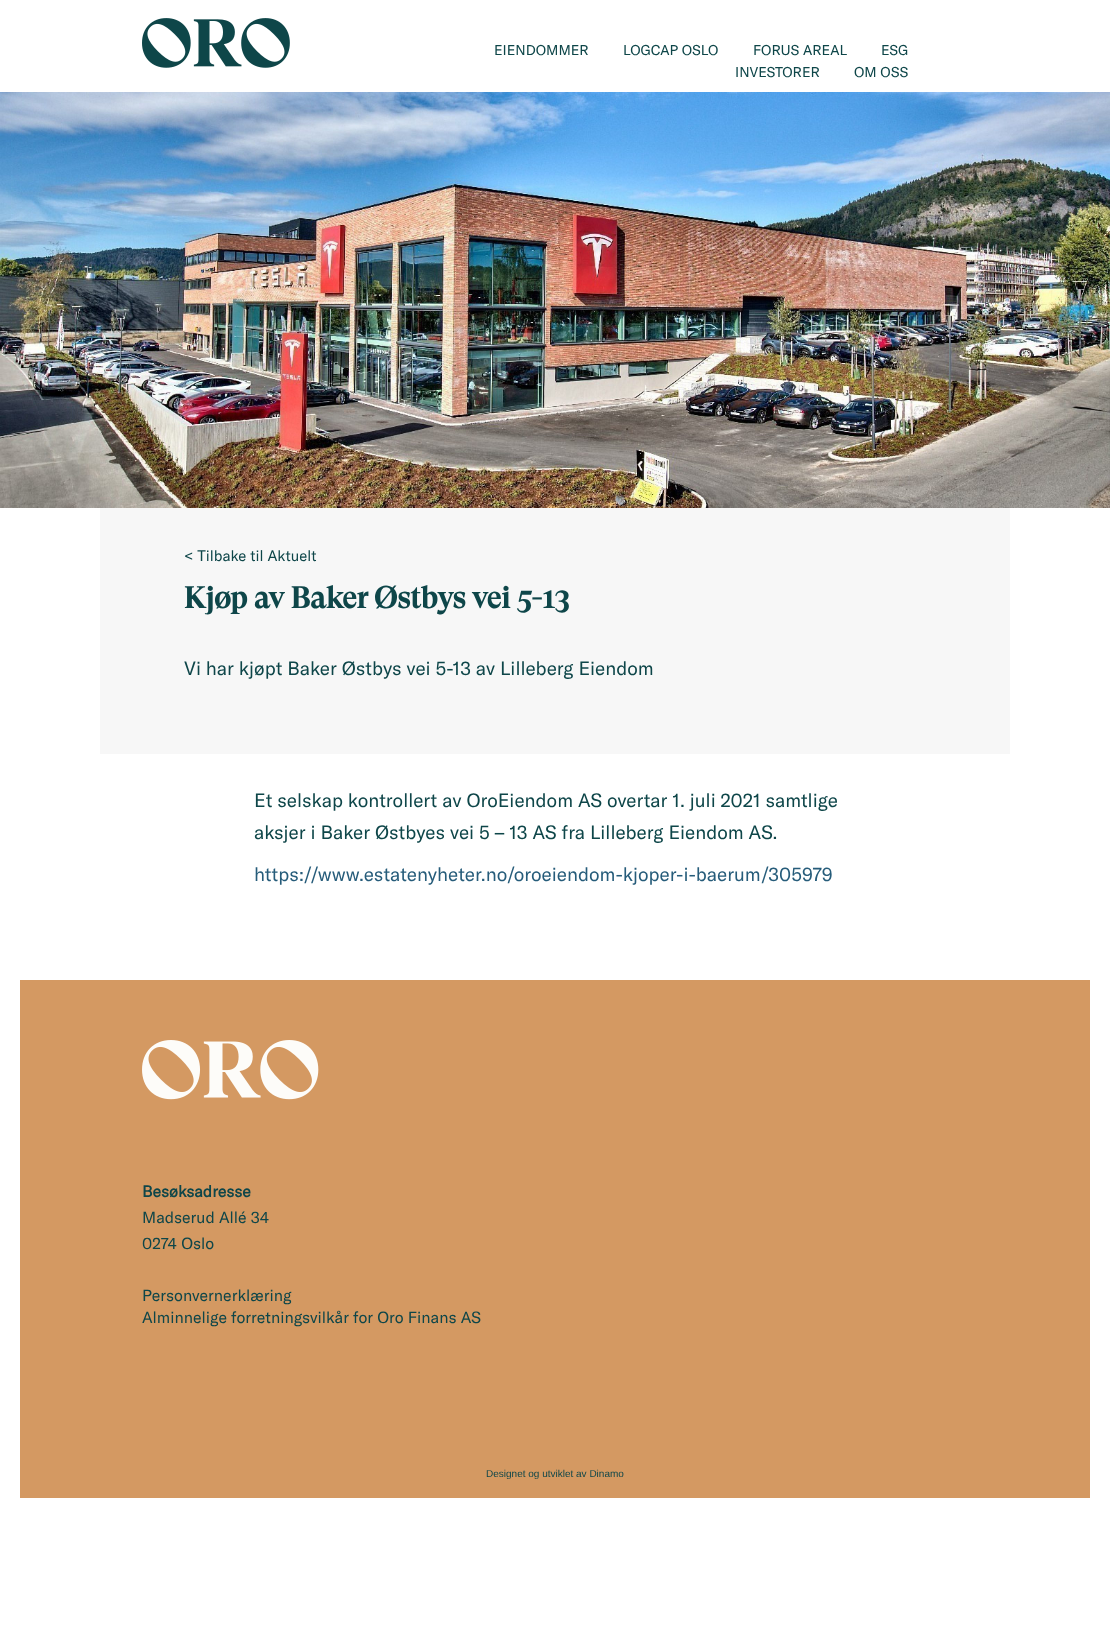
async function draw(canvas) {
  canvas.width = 1110
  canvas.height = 1650
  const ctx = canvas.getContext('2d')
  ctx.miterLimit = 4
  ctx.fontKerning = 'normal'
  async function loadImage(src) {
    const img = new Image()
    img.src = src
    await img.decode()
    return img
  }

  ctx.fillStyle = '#fff'
  ctx.fillRect(0, 0, 1110, 1650)
  ctx.drawImage(await loadImage('image0.png'), 142, 18, 148, 50)
  ctx.font = '14px GT America'
  ctx.fillStyle = '#0e4649'
  ctx.fillText('EIENDOMMER', 494, 55)
  ctx.fillText('LOGCAP OSLO', 623, 55)
  ctx.fillText('FORUS AREAL', 753, 55)
  ctx.fillText('ESG', 881, 55)
  ctx.fillText('INVESTORER', 735, 77)
  ctx.fillText('OM OSS', 854, 77)
  ctx.drawImage(await loadImage('image1.png'), 0, 92, 1110, 416)
  ctx.fillStyle = '#f7f7f7'
  ctx.fillRect(100, 508, 910, 246)
  ctx.font = '15px GT America'
  ctx.fillStyle = '#0e4649'
  ctx.fillText('< Tilbake til Aktuelt', 184, 561)
  ctx.font = 'bold 30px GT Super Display'
  ctx.fillText('Kjøp av Baker Østbys vei 5-13', 184, 608)
  ctx.font = '19px GT America'
  ctx.fillText('Vi har kjøpt Baker Østbys vei 5-13 av Lilleberg Eiendom', 184, 675)
  ctx.fillText('Et selskap kontrollert av OroEiendom AS overtar 1. juli 2021 samtlige', 254, 807)
  ctx.fillText('aksjer i Baker Østbyes vei 5 – 13 AS fra Lilleberg Eiendom AS.', 254, 839)
  ctx.fillStyle = '#265c7a'
  ctx.fillText('https://www.estatenyheter.no/oroeiendom-kjoper-i-baerum/305979', 254, 881)
  ctx.fillStyle = '#d49962'
  ctx.fillRect(20, 980, 1070, 518)
  ctx.drawImage(await loadImage('image2.png'), 142, 1040, 177, 60)
  ctx.font = 'bold 16px GT America'
  ctx.fillStyle = '#0e4649'
  ctx.fillText('Besøksadresse', 142, 1197)
  ctx.font = '16px GT America'
  ctx.fillText('Madserud Allé 34', 142, 1223)
  ctx.fillText('0274 Oslo', 142, 1249)
  ctx.fillText('Personvernerklæring', 142, 1301)
  ctx.fillText('Alminnelige forretningsvilkår for Oro Finans AS', 142, 1323)
  ctx.font = '10px Liberation Sans'
  ctx.fillText('Designet og utviklet av Dinamo', 486, 1477)
}

draw(document.querySelector('canvas'))
